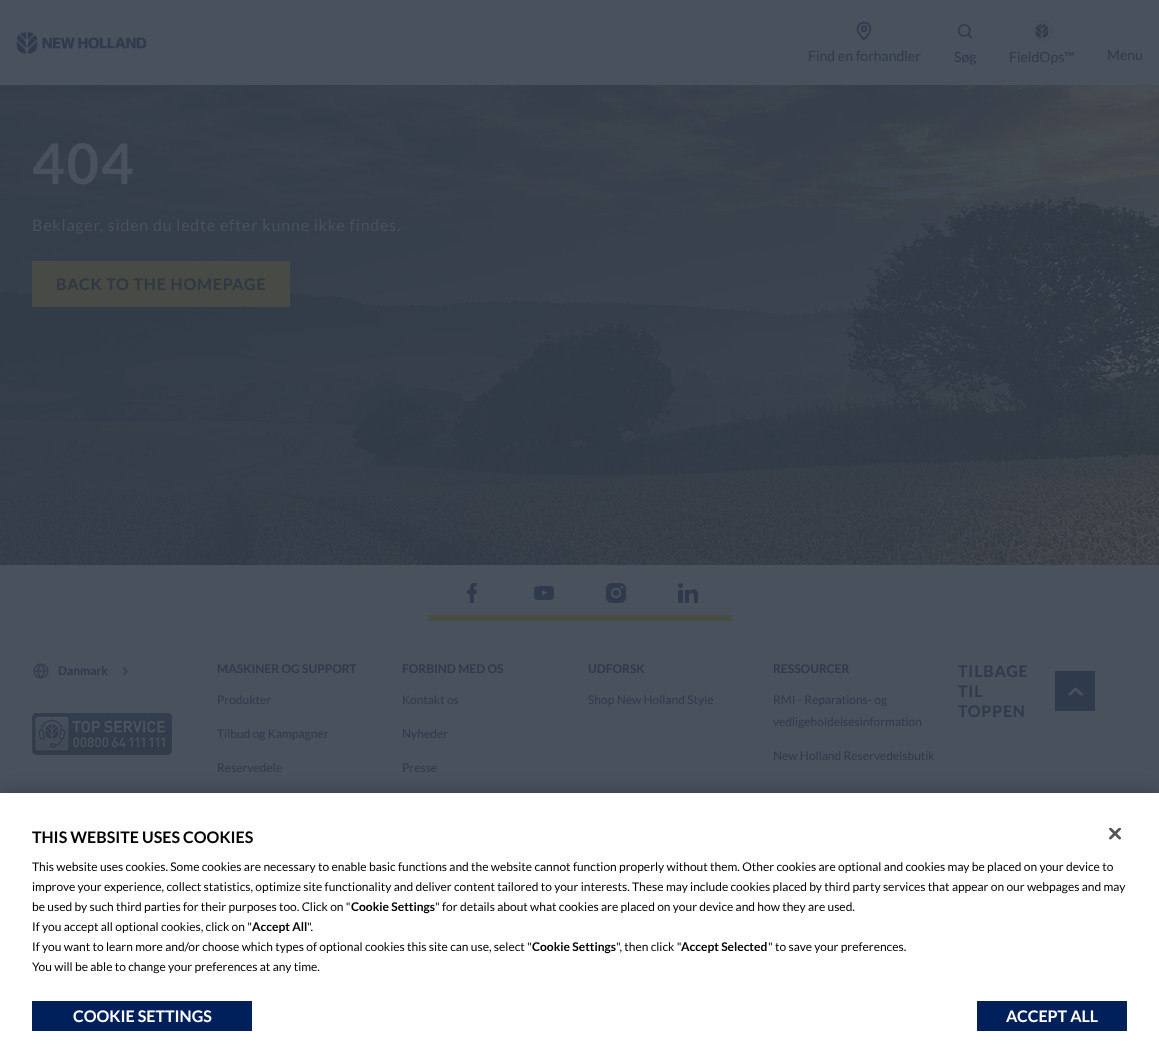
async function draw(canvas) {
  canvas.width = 1159
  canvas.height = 1063
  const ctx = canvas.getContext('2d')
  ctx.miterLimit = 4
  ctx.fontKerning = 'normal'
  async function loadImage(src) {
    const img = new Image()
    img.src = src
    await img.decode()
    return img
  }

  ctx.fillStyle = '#48515c'
  ctx.fillRect(0, 0, 1159, 1063)
  ctx.drawImage(await loadImage('image0.png'), 16, 32, 131, 22)
  ctx.drawImage(await loadImage('image1.png'), 856, 21, 16, 20)
  ctx.font = '14px Lato'
  ctx.fillStyle = '#2f3b4c'
  ctx.fillText('Find en forhandler', 808, 61)
  ctx.drawImage(await loadImage('image2.png'), 958, 24, 15, 15)
  ctx.fillText('Søg', 954, 62)
  ctx.drawImage(await loadImage('image3.png'), 1031, 20, 22, 22)
  ctx.fillText('FieldOps™', 1009, 62)
  ctx.fillText('Menu', 1107, 60)
  ctx.drawImage(await loadImage('image4.png'), 0, 85, 1159, 480)
  ctx.letterSpacing = '2px'
  ctx.font = 'bold 56px Lato'
  ctx.fillStyle = '#48515c'
  ctx.fillText('404', 32, 184)
  ctx.letterSpacing = '0.8px'
  ctx.font = '16px Lato'
  ctx.fillText('Beklager, siden du ledte efter kunne ikke findes.', 32, 231)
  ctx.fillStyle = '#474a45'
  ctx.fillRect(32, 261, 258, 46)
  ctx.font = 'bold 16px Lato'
  ctx.fillStyle = '#2f3843'
  ctx.fillText('BACK TO THE HOMEPAGE', 56, 290)
  ctx.drawImage(await loadImage('image5.png'), 467, 583, 10, 20)
  ctx.drawImage(await loadImage('image6.png'), 534, 586, 20, 14)
  ctx.drawImage(await loadImage('image7.png'), 606, 583, 20, 20)
  ctx.drawImage(await loadImage('image8.png'), 678, 583, 20, 20)
  ctx.fillStyle = '#484d43'
  ctx.fillRect(428, 615, 304, 6)
  ctx.drawImage(await loadImage('image9.png'), 33, 663, 16, 16)
  ctx.letterSpacing = '0px'
  ctx.font = 'bold 12px Lato'
  ctx.fillStyle = '#2f3b4c'
  ctx.fillText('Danmark', 58, 675)
  ctx.drawImage(await loadImage('image10.png'), 123, 667, 5, 9)
  ctx.drawImage(await loadImage('image11.png'), 32, 713, 140, 42)
  ctx.fillText('MASKINER OG SUPPORT', 217, 673)
  ctx.font = '12px Lato'
  ctx.fillText('Produkter', 217, 704)
  ctx.fillText('Tilbud og Kampagner', 217, 738)
  ctx.fillText('Reservedele', 217, 772)
  ctx.font = 'bold 12px Lato'
  ctx.fillText('FORBIND MED OS', 402, 673)
  ctx.font = '12px Lato'
  ctx.fillText('Kontakt os', 402, 704)
  ctx.fillText('Nyheder', 402, 738)
  ctx.fillText('Presse', 402, 772)
  ctx.font = 'bold 12px Lato'
  ctx.fillText('UDFORSK', 588, 673)
  ctx.font = '12px Lato'
  ctx.fillText('Shop New Holland Style', 588, 704)
  ctx.font = 'bold 12px Lato'
  ctx.fillText('RESSOURCER', 773, 673)
  ctx.font = '12px Lato'
  ctx.fillText('RMI - Reparations- og', 773, 704)
  ctx.fillText('vedligeholdelsesinformation', 773, 726)
  ctx.fillText('New Holland Reservedelsbutik', 773, 760)
  ctx.letterSpacing = '0.8px'
  ctx.font = 'bold 16px Lato'
  ctx.fillText('TILBAGE', 958, 677)
  ctx.fillText('TIL', 958, 697)
  ctx.fillText('TOPPEN', 958, 717)
  ctx.fillRect(1055, 671, 40, 40)
  ctx.drawImage(await loadImage('image12.png'), 1068, 687, 15, 9)
  ctx.fillStyle = '#00000033'
  ctx.filter = 'blur(9px)'
  ctx.beginPath()
  ctx.rect(0, 793, 1159, 270)
  ctx.fill()
  ctx.filter = 'none'
  ctx.fillStyle = '#fff'
  ctx.fillRect(0, 793, 1159, 270)
  ctx.drawImage(await loadImage('image13.png'), 1109, 828, 12, 12)
  ctx.letterSpacing = '0px'
  ctx.fillStyle = '#000'
  ctx.fillText('THIS WEBSITE USES COOKIES', 32, 843)
  ctx.font = '12px Lato'
  ctx.fillText('This website uses cookies. Some cookies are necessary to enable basic functions and the website cannot function properly without them. Other cookies are optional and cookies may be placed on your device to', 32, 871)
  ctx.fillText('improve your experience, collect statistics, optimize site functionality and deliver content tailored to your interests. These may include cookies placed by third party services that appear on our webpages and may', 32, 891)
  ctx.fillText('be used by such third parties for their purposes too. Click on "', 32, 911)
  ctx.font = 'bold 12px Lato'
  ctx.fillText('Cookie Settings', 351, 911)
  ctx.font = '12px Lato'
  ctx.fillText('" for details about what cookies are placed on your device and how they are used.', 435, 911)
  ctx.fillText('If you accept all optional cookies, click on "', 32, 931)
  ctx.font = 'bold 12px Lato'
  ctx.fillText('Accept All', 252, 931)
  ctx.font = '12px Lato'
  ctx.fillText('".', 307, 931)
  ctx.fillText('If you want to learn more and/or choose which types of optional cookies this site can use, select "', 32, 951)
  ctx.font = 'bold 12px Lato'
  ctx.fillText('Cookie Settings', 532, 951)
  ctx.font = '12px Lato'
  ctx.fillText('", then click "', 616, 951)
  ctx.font = 'bold 12px Lato'
  ctx.fillText('Accept Selected', 681, 951)
  ctx.font = '12px Lato'
  ctx.fillText('" to save your preferences.', 768, 951)
  ctx.fillText('You will be able to change your preferences at any time.', 32, 971)
  ctx.fillStyle = '#00205b'
  ctx.fillRect(32, 1001, 220, 30)
  ctx.font = 'bold 16px Lato'
  ctx.fillStyle = '#fff'
  ctx.fillText('COOKIE SETTINGS', 73, 1022)
  ctx.fillStyle = '#00205b'
  ctx.fillRect(977, 1001, 150, 30)
  ctx.fillStyle = '#fff'
  ctx.fillText('ACCEPT ALL', 1006, 1022)
}

draw(document.querySelector('canvas'))
